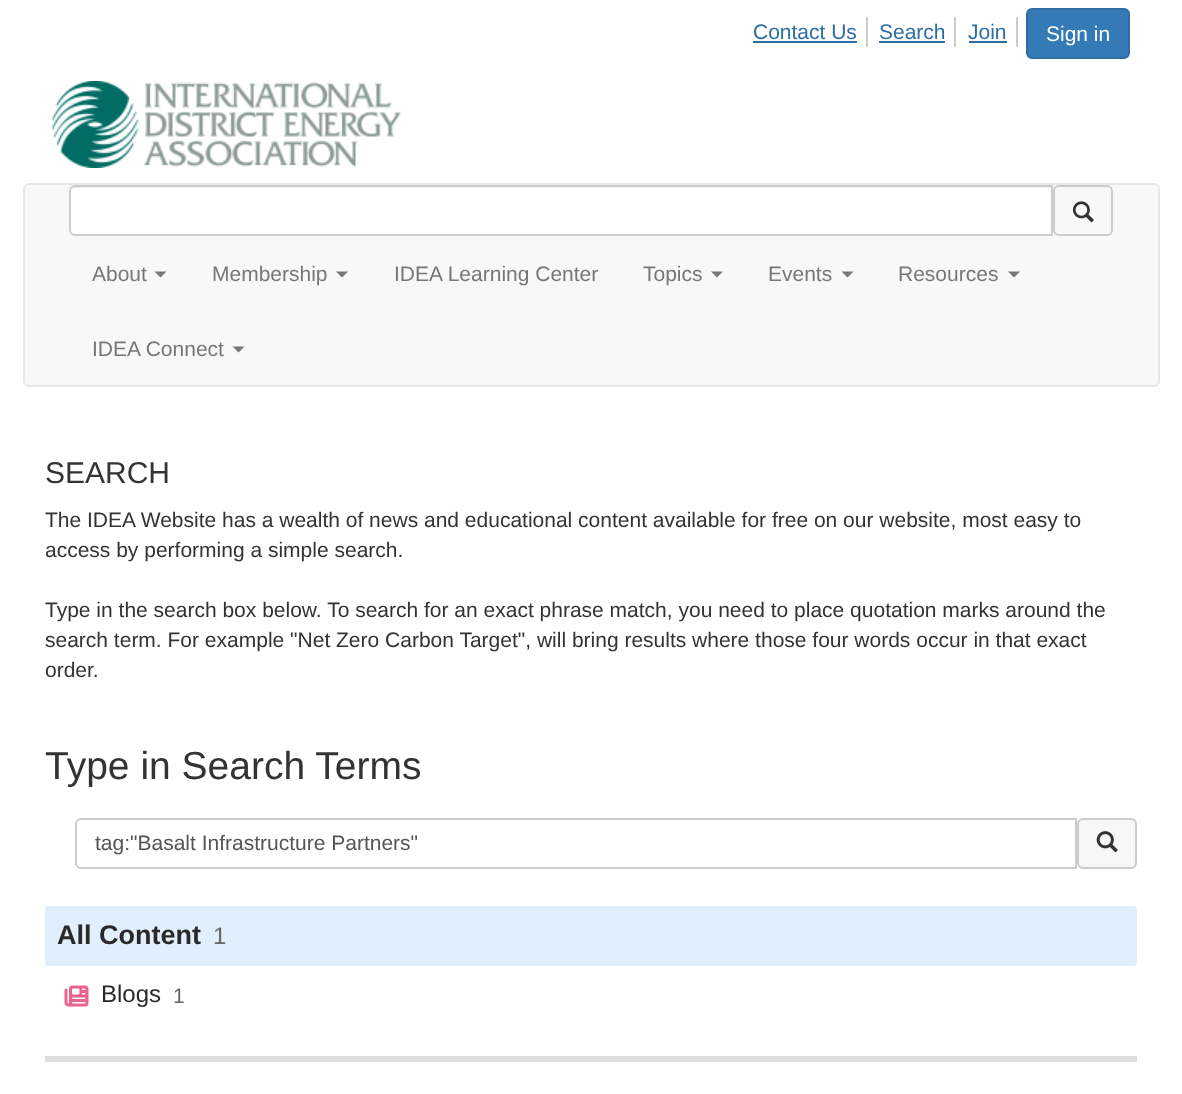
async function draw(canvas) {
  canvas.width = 1182
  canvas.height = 1094
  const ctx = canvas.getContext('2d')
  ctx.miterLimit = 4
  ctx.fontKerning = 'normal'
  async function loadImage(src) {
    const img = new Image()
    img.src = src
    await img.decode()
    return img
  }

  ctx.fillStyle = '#fff'
  ctx.fillRect(0, 0, 1182, 1094)
  ctx.fillStyle = '#ccc'
  ctx.fillRect(866, 17, 2, 30)
  ctx.font = '21px Liberation Sans'
  ctx.fillStyle = '#2e6da4'
  ctx.fillText('Contact Us', 753, 39)
  ctx.fillRect(753, 41, 104, 2)
  ctx.fillStyle = '#ccc'
  ctx.fillRect(954, 17, 2, 30)
  ctx.fillStyle = '#2e6da4'
  ctx.fillText('Search', 879, 39)
  ctx.fillRect(879, 41, 66, 2)
  ctx.fillStyle = '#ccc'
  ctx.fillRect(1016, 17, 2, 30)
  ctx.fillStyle = '#2e6da4'
  ctx.fillText('Join', 968, 39)
  ctx.fillRect(969, 41, 38, 2)
  ctx.fillStyle = '#337ab7'
  ctx.beginPath()
  ctx.roundRect(1027, 9, 102, 49, 5)
  ctx.fill()
  ctx.strokeStyle = '#2e6da4'
  ctx.lineWidth = 2
  ctx.stroke()
  ctx.fillStyle = '#fff'
  ctx.fillText('Sign in', 1046, 41)
  ctx.drawImage(await loadImage('image0.png'), 52, 81, 349, 87)
  ctx.fillStyle = '#f8f8f8'
  ctx.beginPath()
  ctx.roundRect(24, 184, 1135, 202, 5)
  ctx.fill()
  ctx.strokeStyle = '#e7e7e7'
  ctx.stroke()
  ctx.fillStyle = '#fff'
  ctx.beginPath()
  ctx.roundRect(69, 185, 984, 51, [6, 0, 0, 6])
  ctx.fill()
  ctx.fillStyle = '#ececec'
  ctx.beginPath()
  ctx.moveTo(75, 188)
  ctx.lineTo(1052, 188)
  ctx.lineTo(1052, 186)
  ctx.lineTo(76, 186)
  ctx.bezierCurveTo(74, 186, 72, 188, 71, 190)
  ctx.bezierCurveTo(72, 189, 74, 188, 75, 188)
  ctx.closePath()
  ctx.fill()
  ctx.beginPath()
  ctx.roundRect(70, 186, 982, 49, [5, 0, 0, 5])
  ctx.strokeStyle = '#ccc'
  ctx.stroke()
  ctx.beginPath()
  ctx.roundRect(1054, 186, 58, 49, 5)
  ctx.stroke()
  ctx.drawImage(await loadImage('image1.png'), 1072, 201, 22, 22)
  ctx.fillStyle = '#777'
  ctx.fillText('About', 92, 281)
  ctx.beginPath()
  ctx.moveTo(154.5, 271.5)
  ctx.lineTo(166.5, 271.5)
  ctx.lineTo(160.5, 277.5)
  ctx.closePath()
  ctx.fill()
  ctx.fillText('Membership', 212, 281)
  ctx.beginPath()
  ctx.moveTo(336, 271.5)
  ctx.lineTo(348, 271.5)
  ctx.lineTo(342, 277.5)
  ctx.closePath()
  ctx.fill()
  ctx.fillText('IDEA Learning Center', 394, 281)
  ctx.fillText('Topics', 643, 281)
  ctx.beginPath()
  ctx.moveTo(711, 271.5)
  ctx.lineTo(723, 271.5)
  ctx.lineTo(717, 277.5)
  ctx.closePath()
  ctx.fill()
  ctx.fillText('Events', 768, 281)
  ctx.beginPath()
  ctx.moveTo(841.5, 271.5)
  ctx.lineTo(853.5, 271.5)
  ctx.lineTo(847.5, 277.5)
  ctx.closePath()
  ctx.fill()
  ctx.fillText('Resources', 898, 281)
  ctx.beginPath()
  ctx.moveTo(1008, 271.5)
  ctx.lineTo(1020, 271.5)
  ctx.lineTo(1014, 277.5)
  ctx.closePath()
  ctx.fill()
  ctx.fillText('IDEA Connect', 92, 356)
  ctx.beginPath()
  ctx.moveTo(232.5, 346.5)
  ctx.lineTo(244.5, 346.5)
  ctx.lineTo(238.5, 352.5)
  ctx.closePath()
  ctx.fill()
  ctx.font = '30px Liberation Sans'
  ctx.fillStyle = '#333'
  ctx.fillText('SEARCH', 45, 483)
  ctx.font = '21px Liberation Sans'
  ctx.fillText('The IDEA Website has a wealth of news and educational content available for free on our website, most easy to', 45, 527)
  ctx.fillText('access by performing a simple search.', 45, 557)
  ctx.fillText('Type in the search box below. To search for an exact phrase match, you need to place quotation marks around the', 45, 617)
  ctx.fillText('search term. For example "Net Zero Carbon Target", will bring results where those four words occur in that exact', 45, 647)
  ctx.fillText('order.', 45, 677)
  ctx.font = '39px Liberation Sans'
  ctx.fillText('Type in Search Terms', 45, 779)
  ctx.beginPath()
  ctx.roundRect(76, 819, 1000, 49, [5, 0, 0, 5])
  ctx.stroke()
  ctx.font = '21px Liberation Sans'
  ctx.fillStyle = '#555'
  ctx.fillText('tag:"Basalt Infrastructure Partners"', 95, 850)
  ctx.fillStyle = '#f7f7f7'
  ctx.beginPath()
  ctx.roundRect(1078, 819, 58, 49, 5)
  ctx.fill()
  ctx.stroke()
  ctx.drawImage(await loadImage('image2.png'), 1096, 831, 22, 22)
  ctx.fillStyle = '#e1eefb'
  ctx.beginPath()
  ctx.roundRect(45, 906, 1092, 60, 3)
  ctx.fill()
  ctx.font = 'bold 27px Liberation Sans'
  ctx.fillStyle = '#292929'
  ctx.fillText('All Content', 57, 944)
  ctx.font = '24px Liberation Sans'
  ctx.fillStyle = '#666'
  ctx.fillText('1', 213, 944)
  ctx.drawImage(await loadImage('image3.png'), 64, 985, 25, 22)
  ctx.fillStyle = '#292929'
  ctx.fillText('Blogs', 101, 1002)
  ctx.font = '21px Liberation Sans'
  ctx.fillStyle = '#666'
  ctx.fillText('1', 173, 1003)
  ctx.fillStyle = '#dededf'
  ctx.fillRect(45, 1056, 1092, 6)
}

draw(document.querySelector('canvas'))
